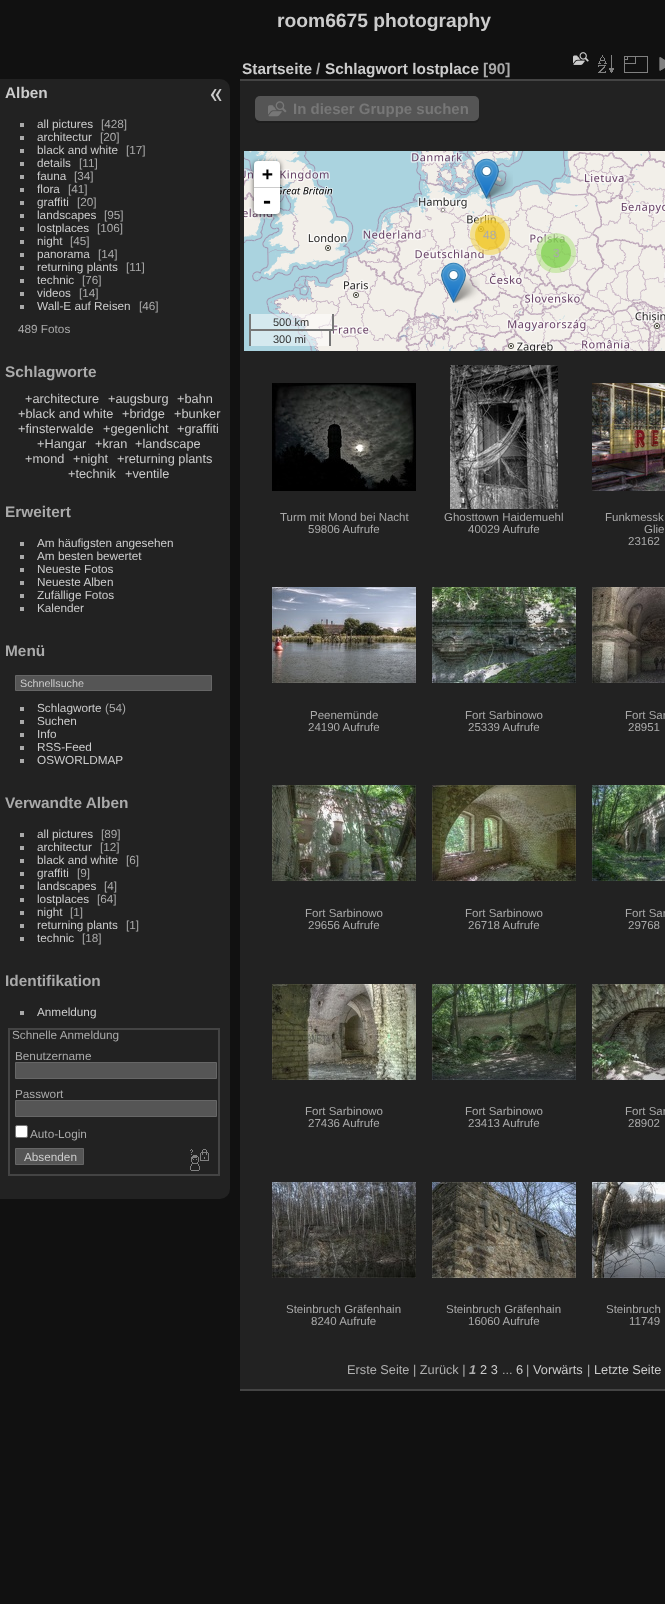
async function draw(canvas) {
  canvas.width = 665
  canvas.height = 1604
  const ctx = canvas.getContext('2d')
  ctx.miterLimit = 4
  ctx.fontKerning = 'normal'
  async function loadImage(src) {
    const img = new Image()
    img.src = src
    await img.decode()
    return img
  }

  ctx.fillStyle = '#111'
  ctx.fillRect(0, 0, 665, 1604)
  ctx.font = 'bold 19.25px Liberation Sans'
  ctx.fillStyle = '#ccc'
  ctx.fillText('room6675 photography', 277, 27)
  ctx.fillStyle = '#222'
  ctx.beginPath()
  ctx.roundRect(0, 79, 230, 1120, [0, 10, 10, 0])
  ctx.fill()
  ctx.font = 'bold 15.4px Liberation Sans'
  ctx.fillStyle = '#ccc'
  ctx.fillText('Alben', 5, 98)
  ctx.fillStyle = '#aaa'
  ctx.fillRect(20, 123, 4, 4)
  ctx.font = '11.75px Liberation Sans'
  ctx.fillStyle = '#ccc'
  ctx.fillText('all pictures', 37, 128)
  ctx.fillStyle = '#aaa'
  ctx.fillText('[428]', 101, 128)
  ctx.fillRect(20, 136, 4, 4)
  ctx.fillStyle = '#ccc'
  ctx.fillText('architectur', 37, 141)
  ctx.fillStyle = '#aaa'
  ctx.fillText('[20]', 100, 141)
  ctx.fillRect(20, 149, 4, 4)
  ctx.fillStyle = '#ccc'
  ctx.fillText('black and white', 37, 154)
  ctx.fillStyle = '#aaa'
  ctx.fillText('[17]', 126, 154)
  ctx.fillRect(20, 162, 4, 4)
  ctx.fillStyle = '#ccc'
  ctx.fillText('details', 37, 167)
  ctx.fillStyle = '#aaa'
  ctx.fillText('[11]', 79, 167)
  ctx.fillRect(20, 175, 4, 4)
  ctx.fillStyle = '#ccc'
  ctx.fillText('fauna', 37, 180)
  ctx.fillStyle = '#aaa'
  ctx.fillText('[34]', 74, 180)
  ctx.fillRect(20, 188, 4, 4)
  ctx.fillStyle = '#ccc'
  ctx.fillText('flora', 37, 193)
  ctx.fillStyle = '#aaa'
  ctx.fillText('[41]', 68, 193)
  ctx.fillRect(20, 201, 4, 4)
  ctx.fillStyle = '#ccc'
  ctx.fillText('graffiti', 37, 206)
  ctx.fillStyle = '#aaa'
  ctx.fillText('[20]', 77, 206)
  ctx.fillRect(20, 214, 4, 4)
  ctx.fillStyle = '#ccc'
  ctx.fillText('landscapes', 37, 219)
  ctx.fillStyle = '#aaa'
  ctx.fillText('[95]', 104, 219)
  ctx.fillRect(20, 227, 4, 4)
  ctx.fillStyle = '#ccc'
  ctx.fillText('lostplaces', 37, 232)
  ctx.fillStyle = '#aaa'
  ctx.fillText('[106]', 97, 232)
  ctx.fillRect(20, 240, 4, 4)
  ctx.fillStyle = '#ccc'
  ctx.fillText('night', 37, 245)
  ctx.fillStyle = '#aaa'
  ctx.fillText('[45]', 70, 245)
  ctx.fillRect(20, 253, 4, 4)
  ctx.fillStyle = '#ccc'
  ctx.fillText('panorama', 37, 258)
  ctx.fillStyle = '#aaa'
  ctx.fillText('[14]', 98, 258)
  ctx.fillRect(20, 266, 4, 4)
  ctx.fillStyle = '#ccc'
  ctx.fillText('returning plants', 37, 271)
  ctx.fillStyle = '#aaa'
  ctx.fillText('[11]', 126, 271)
  ctx.fillRect(20, 279, 4, 4)
  ctx.fillStyle = '#ccc'
  ctx.fillText('technic', 37, 284)
  ctx.fillStyle = '#aaa'
  ctx.fillText('[76]', 82, 284)
  ctx.fillRect(20, 292, 4, 4)
  ctx.fillStyle = '#ccc'
  ctx.fillText('videos', 37, 297)
  ctx.fillStyle = '#aaa'
  ctx.fillText('[14]', 79, 297)
  ctx.fillRect(20, 305, 4, 4)
  ctx.fillStyle = '#ccc'
  ctx.fillText('Wall-E auf Reisen', 37, 310)
  ctx.fillStyle = '#aaa'
  ctx.fillText('[46]', 139, 310)
  ctx.fillText('489 Fotos', 18, 333)
  ctx.font = 'bold 15.4px Liberation Sans'
  ctx.fillText('Schlagworte', 5, 377)
  ctx.font = '12.75px Liberation Sans'
  ctx.fillStyle = '#ccc'
  ctx.fillText('+architecture', 25, 403)
  ctx.fillText('+augsburg', 108, 403)
  ctx.fillText('+bahn', 177, 403)
  ctx.fillText('+black and white', 18, 418)
  ctx.fillText('+bridge', 122, 418)
  ctx.fillText('+bunker', 174, 418)
  ctx.fillText('+finsterwalde', 18, 433)
  ctx.fillText('+gegenlicht', 103, 433)
  ctx.fillText('+graffiti', 177, 433)
  ctx.fillText('+Hangar', 37, 448)
  ctx.fillText('+kran', 95, 448)
  ctx.fillText('+landscape', 135, 448)
  ctx.fillText('+mond', 25, 463)
  ctx.fillText('+night', 73, 463)
  ctx.fillText('+returning plants', 117, 463)
  ctx.fillText('+technik', 68, 478)
  ctx.fillText('+ventile', 125, 478)
  ctx.font = 'bold 15.4px Liberation Sans'
  ctx.fillStyle = '#aaa'
  ctx.fillText('Erweitert', 5, 517)
  ctx.fillRect(20, 542, 4, 4)
  ctx.font = '11.75px Liberation Sans'
  ctx.fillStyle = '#ccc'
  ctx.fillText('Am häufigsten angesehen', 37, 547)
  ctx.fillStyle = '#aaa'
  ctx.fillRect(20, 555, 4, 4)
  ctx.fillStyle = '#ccc'
  ctx.fillText('Am besten bewertet', 37, 560)
  ctx.fillStyle = '#aaa'
  ctx.fillRect(20, 568, 4, 4)
  ctx.fillStyle = '#ccc'
  ctx.fillText('Neueste Fotos', 37, 573)
  ctx.fillStyle = '#aaa'
  ctx.fillRect(20, 581, 4, 4)
  ctx.fillStyle = '#ccc'
  ctx.fillText('Neueste Alben', 37, 586)
  ctx.fillStyle = '#aaa'
  ctx.fillRect(20, 594, 4, 4)
  ctx.fillStyle = '#ccc'
  ctx.fillText('Zufällige Fotos', 37, 599)
  ctx.fillStyle = '#aaa'
  ctx.fillRect(20, 607, 4, 4)
  ctx.fillStyle = '#ccc'
  ctx.fillText('Kalender', 37, 612)
  ctx.font = 'bold 15.4px Liberation Sans'
  ctx.fillStyle = '#aaa'
  ctx.fillText('Menü', 5, 656)
  ctx.fillStyle = '#555'
  ctx.beginPath()
  ctx.rect(15.5, 675.5, 196, 15)
  ctx.fill()
  ctx.strokeStyle = '#666'
  ctx.stroke()
  ctx.font = '10.75px Liberation Sans'
  ctx.fillStyle = '#ccc'
  ctx.fillText('Schnellsuche', 20, 687)
  ctx.fillStyle = '#aaa'
  ctx.fillRect(20, 707, 4, 4)
  ctx.font = '11.75px Liberation Sans'
  ctx.fillStyle = '#ccc'
  ctx.fillText('Schlagworte', 37, 712)
  ctx.fillStyle = '#aaa'
  ctx.fillText('(54)', 105, 712)
  ctx.fillRect(20, 720, 4, 4)
  ctx.fillStyle = '#ccc'
  ctx.fillText('Suchen', 37, 725)
  ctx.fillStyle = '#aaa'
  ctx.fillRect(20, 733, 4, 4)
  ctx.fillStyle = '#ccc'
  ctx.fillText('Info', 37, 738)
  ctx.fillStyle = '#aaa'
  ctx.fillRect(20, 746, 4, 4)
  ctx.fillStyle = '#ccc'
  ctx.fillText('RSS-Feed', 37, 751)
  ctx.fillStyle = '#aaa'
  ctx.fillRect(20, 759, 4, 4)
  ctx.fillStyle = '#ccc'
  ctx.fillText('OSWORLDMAP', 37, 764)
  ctx.font = 'bold 15.4px Liberation Sans'
  ctx.fillStyle = '#aaa'
  ctx.fillText('Verwandte Alben', 5, 808)
  ctx.fillRect(20, 833, 4, 4)
  ctx.font = '11.75px Liberation Sans'
  ctx.fillStyle = '#ccc'
  ctx.fillText('all pictures', 37, 838)
  ctx.fillStyle = '#aaa'
  ctx.fillText('[89]', 101, 838)
  ctx.fillRect(20, 846, 4, 4)
  ctx.fillStyle = '#ccc'
  ctx.fillText('architectur', 37, 851)
  ctx.fillStyle = '#aaa'
  ctx.fillText('[12]', 100, 851)
  ctx.fillRect(20, 859, 4, 4)
  ctx.fillStyle = '#ccc'
  ctx.fillText('black and white', 37, 864)
  ctx.fillStyle = '#aaa'
  ctx.fillText('[6]', 126, 864)
  ctx.fillRect(20, 872, 4, 4)
  ctx.fillStyle = '#ccc'
  ctx.fillText('graffiti', 37, 877)
  ctx.fillStyle = '#aaa'
  ctx.fillText('[9]', 77, 877)
  ctx.fillRect(20, 885, 4, 4)
  ctx.fillStyle = '#ccc'
  ctx.fillText('landscapes', 37, 890)
  ctx.fillStyle = '#aaa'
  ctx.fillText('[4]', 104, 890)
  ctx.fillRect(20, 898, 4, 4)
  ctx.fillStyle = '#ccc'
  ctx.fillText('lostplaces', 37, 903)
  ctx.fillStyle = '#aaa'
  ctx.fillText('[64]', 97, 903)
  ctx.fillRect(20, 911, 4, 4)
  ctx.fillStyle = '#ccc'
  ctx.fillText('night', 37, 916)
  ctx.fillStyle = '#aaa'
  ctx.fillText('[1]', 70, 916)
  ctx.fillRect(20, 924, 4, 4)
  ctx.fillStyle = '#ccc'
  ctx.fillText('returning plants', 37, 929)
  ctx.fillStyle = '#aaa'
  ctx.fillText('[1]', 126, 929)
  ctx.fillRect(20, 937, 4, 4)
  ctx.fillStyle = '#ccc'
  ctx.fillText('technic', 37, 942)
  ctx.fillStyle = '#aaa'
  ctx.fillText('[18]', 82, 942)
  ctx.font = 'bold 15.4px Liberation Sans'
  ctx.fillText('Identifikation', 5, 986)
  ctx.fillRect(20, 1011, 4, 4)
  ctx.font = '11.75px Liberation Sans'
  ctx.fillStyle = '#ccc'
  ctx.fillText('Anmeldung', 37, 1016)
  ctx.strokeStyle = '#444'
  ctx.lineWidth = 2
  ctx.strokeRect(9, 1029, 210, 146)
  ctx.fillStyle = '#aaa'
  ctx.fillText('Schnelle Anmeldung', 12, 1039)
  ctx.fillText('Benutzername', 15, 1060)
  ctx.fillStyle = '#555'
  ctx.beginPath()
  ctx.rect(15.5, 1062.5, 201, 16)
  ctx.fill()
  ctx.strokeStyle = '#666'
  ctx.lineWidth = 1
  ctx.stroke()
  ctx.fillStyle = '#aaa'
  ctx.fillText('Passwort', 15, 1098)
  ctx.fillStyle = '#555'
  ctx.beginPath()
  ctx.rect(15.5, 1100.5, 201, 16)
  ctx.fill()
  ctx.stroke()
  ctx.fillStyle = '#fff'
  ctx.beginPath()
  ctx.roundRect(15.5, 1125.5, 12, 12, 1.5)
  ctx.fill()
  ctx.strokeStyle = '#767676'
  ctx.stroke()
  ctx.fillStyle = '#aaa'
  ctx.fillText('Auto-Login', 30, 1138)
  ctx.fillStyle = '#555'
  ctx.beginPath()
  ctx.rect(15.5, 1148.5, 68, 16)
  ctx.fill()
  ctx.strokeStyle = '#666'
  ctx.stroke()
  ctx.fillStyle = '#ccc'
  ctx.fillText('Absenden', 24, 1161)
  ctx.drawImage(await loadImage('image0.png'), 190, 1149, 19, 22)
  ctx.fillStyle = '#222'
  ctx.fillRect(240, 81, 425, 1308)
  ctx.fillStyle = '#444'
  ctx.fillRect(240, 1389, 425, 2)
  ctx.fillRect(240, 79, 425, 2)
  ctx.font = 'bold 15.4px Liberation Sans'
  ctx.fillStyle = '#ccc'
  ctx.fillText('Startseite', 242, 74)
  ctx.fillStyle = '#aaa'
  ctx.fillText('/', 316, 74)
  ctx.fillStyle = '#ccc'
  ctx.fillText('Schlagwort lostplace', 325, 74)
  ctx.fillStyle = '#aaa'
  ctx.fillText('[90]', 483, 74)
  ctx.drawImage(await loadImage('image1.png'), 573, 52, 16, 13)
  ctx.drawImage(await loadImage('image2.png'), 598, 55, 16, 18)
  ctx.drawImage(await loadImage('image3.png'), 624, 56, 24, 17)
  ctx.drawImage(await loadImage('image4.png'), 659, 57, 6, 14)
  ctx.fillStyle = '#1d1d1d'
  ctx.beginPath()
  ctx.moveTo(255, 116)
  ctx.lineTo(255, 118)
  ctx.bezierCurveTo(255, 121, 257, 123, 260, 123)
  ctx.lineTo(474, 123)
  ctx.bezierCurveTo(477, 123, 479, 121, 479, 118)
  ctx.lineTo(479, 116)
  ctx.bezierCurveTo(479, 119, 477, 121, 474, 121)
  ctx.lineTo(260, 121)
  ctx.bezierCurveTo(257, 121, 255, 119, 255, 116)
  ctx.closePath()
  ctx.fill()
  ctx.fillStyle = '#555'
  ctx.beginPath()
  ctx.roundRect(255, 96, 224, 25, 5)
  ctx.fill()
  ctx.drawImage(await loadImage('image5.png'), 268, 101, 19, 16)
  ctx.font = 'bold 15px Liberation Sans'
  ctx.fillStyle = '#777'
  ctx.fillText('In dieser Gruppe suchen', 293, 114)
  ctx.drawImage(await loadImage('image6.png'), 244, 151, 85, 15)
  ctx.drawImage(await loadImage('image9.png'), 244, 166, 85, 185)
  ctx.fillStyle = '#000000a6'
  ctx.filter = 'blur(2.5px)'
  ctx.beginPath()
  ctx.roundRect(254, 162, 26, 53, 4)
  ctx.fill()
  ctx.filter = 'none'
  ctx.fillStyle = '#fff'
  ctx.beginPath()
  ctx.roundRect(254, 161, 26, 27, [4, 4, 0, 0])
  ctx.fill()
  ctx.fillStyle = '#ccc'
  ctx.fillRect(254, 187, 26, 1)
  ctx.font = 'bold 18px DejaVu Sans Mono'
  ctx.fillStyle = '#000'
  ctx.fillText('+', 262, 180)
  ctx.fillStyle = '#fff'
  ctx.beginPath()
  ctx.roundRect(254, 188, 26, 26, [0, 0, 4, 4])
  ctx.fill()
  ctx.font = 'bold 20px DejaVu Sans Mono'
  ctx.fillStyle = '#000'
  ctx.fillText('-', 261, 208)
  ctx.drawImage(await loadImage('image10.png'), 329, 166, 256, 185)
  ctx.fillStyle = '#ffffff80'
  ctx.fillRect(251, 314, 81, 15)
  ctx.fillStyle = '#777'
  ctx.fillRect(332, 314, 2, 17)
  ctx.fillRect(331, 329, 3, 2)
  ctx.fillRect(249, 314, 2, 17)
  ctx.font = '11px Liberation Sans'
  ctx.fillStyle = '#333'
  ctx.fillText('500 km', 273, 326)
  ctx.fillStyle = '#ffffff80'
  ctx.fillRect(251, 331, 78, 15)
  ctx.fillStyle = '#777'
  ctx.fillRect(249, 329, 82, 2)
  ctx.fillRect(329, 329, 2, 17)
  ctx.fillRect(249, 329, 2, 17)
  ctx.fillStyle = '#333'
  ctx.fillText('300 mi', 273, 343)
  ctx.drawImage(await loadImage('image7.png'), 329, 151, 256, 15)
  ctx.drawImage(await loadImage('image8.png'), 585, 151, 80, 15)
  ctx.drawImage(await loadImage('image11.png'), 585, 166, 80, 185)
  ctx.drawImage(await loadImage('image12.png'), 484, 171, 29, 28)
  ctx.drawImage(await loadImage('image13.png'), 451, 275, 29, 28)
  ctx.drawImage(await loadImage('image14.png'), 474, 158, 25, 41)
  ctx.fillStyle = '#f1d35799'
  ctx.beginPath()
  ctx.arc(490, 235, 20, 0, 2 * Math.PI)
  ctx.fill()
  ctx.fillStyle = '#f0c20c99'
  ctx.beginPath()
  ctx.arc(490, 235, 15, 0, 2 * Math.PI)
  ctx.fill()
  ctx.font = '12px Liberation Sans'
  ctx.fillStyle = '#aaa'
  ctx.fillText('48', 483, 239)
  ctx.fillStyle = '#b5e28c99'
  ctx.beginPath()
  ctx.arc(556, 253, 20, 0, 2 * Math.PI)
  ctx.fill()
  ctx.fillStyle = '#6ecc3999'
  ctx.beginPath()
  ctx.arc(556, 253, 15, 0, 2 * Math.PI)
  ctx.fill()
  ctx.fillStyle = '#aaa'
  ctx.fillText('3', 553, 257)
  ctx.drawImage(await loadImage('image15.png'), 441, 262, 25, 41)
  ctx.drawImage(await loadImage('image16.png'), 272, 383, 144, 108)
  ctx.font = '11.5px Liberation Sans'
  ctx.fillText('Turm mit Mond bei Nacht', 280, 521)
  ctx.fillText('59806 Aufrufe', 308, 533)
  ctx.drawImage(await loadImage('image17.png'), 450, 365, 108, 144)
  ctx.fillText('Ghosttown Haidemuehl', 444, 521)
  ctx.fillText('40029 Aufrufe', 468, 533)
  ctx.drawImage(await loadImage('image18.png'), 592, 383, 73, 108)
  ctx.fillText('Funkmessk', 605, 521)
  ctx.fillText('Glie', 644, 533)
  ctx.fillText('23162', 628, 545)
  ctx.drawImage(await loadImage('image19.png'), 272, 587, 144, 96)
  ctx.fillText('Peenemünde', 310, 719)
  ctx.fillText('24190 Aufrufe', 308, 731)
  ctx.drawImage(await loadImage('image20.png'), 432, 587, 144, 96)
  ctx.fillText('Fort Sarbinowo', 465, 719)
  ctx.fillText('25339 Aufrufe', 468, 731)
  ctx.drawImage(await loadImage('image21.png'), 592, 587, 73, 96)
  ctx.fillText('Fort Sar', 625, 719)
  ctx.fillText('28951', 628, 731)
  ctx.drawImage(await loadImage('image22.png'), 272, 785, 144, 96)
  ctx.fillText('Fort Sarbinowo', 305, 917)
  ctx.fillText('29656 Aufrufe', 308, 929)
  ctx.drawImage(await loadImage('image23.png'), 432, 785, 144, 96)
  ctx.fillText('Fort Sarbinowo', 465, 917)
  ctx.fillText('26718 Aufrufe', 468, 929)
  ctx.drawImage(await loadImage('image24.png'), 592, 785, 73, 96)
  ctx.fillText('Fort Sar', 625, 917)
  ctx.fillText('29768', 628, 929)
  ctx.drawImage(await loadImage('image25.png'), 272, 984, 144, 96)
  ctx.fillText('Fort Sarbinowo', 305, 1115)
  ctx.fillText('27436 Aufrufe', 308, 1127)
  ctx.drawImage(await loadImage('image26.png'), 432, 984, 144, 96)
  ctx.fillText('Fort Sarbinowo', 465, 1115)
  ctx.fillText('23413 Aufrufe', 468, 1127)
  ctx.drawImage(await loadImage('image27.png'), 592, 984, 73, 96)
  ctx.fillText('Fort Sar', 625, 1115)
  ctx.fillText('28902', 628, 1127)
  ctx.drawImage(await loadImage('image28.png'), 272, 1182, 144, 96)
  ctx.fillText('Steinbruch Gräfenhain', 286, 1313)
  ctx.fillText('8240 Aufrufe', 311, 1325)
  ctx.drawImage(await loadImage('image29.png'), 432, 1182, 144, 96)
  ctx.fillText('Steinbruch Gräfenhain', 446, 1313)
  ctx.fillText('16060 Aufrufe', 468, 1325)
  ctx.drawImage(await loadImage('image30.png'), 592, 1182, 73, 96)
  ctx.fillText('Steinbruch', 606, 1313)
  ctx.fillText('11749', 629, 1325)
  ctx.font = '12.75px Liberation Sans'
  ctx.fillStyle = '#b0b0b0'
  ctx.fillText('Erste Seite | Zurück |', 347, 1374)
  ctx.font = 'italic bold 12.75px Liberation Sans'
  ctx.fillText('1', 469, 1374)
  ctx.font = '12.75px Liberation Sans'
  ctx.fillStyle = '#ccc'
  ctx.fillText('2 3', 480, 1374)
  ctx.fillStyle = '#b0b0b0'
  ctx.fillText('...', 502, 1374)
  ctx.fillStyle = '#ccc'
  ctx.fillText('6', 516, 1374)
  ctx.fillStyle = '#b0b0b0'
  ctx.fillText('|', 526, 1374)
  ctx.fillStyle = '#ccc'
  ctx.fillText('Vorwärts', 533, 1374)
  ctx.fillStyle = '#b0b0b0'
  ctx.fillText('|', 587, 1374)
  ctx.fillStyle = '#ccc'
  ctx.fillText('Letzte Seite', 594, 1374)
  ctx.drawImage(await loadImage('image31.png'), 210, 89, 12, 12)
}

draw(document.querySelector('canvas'))
